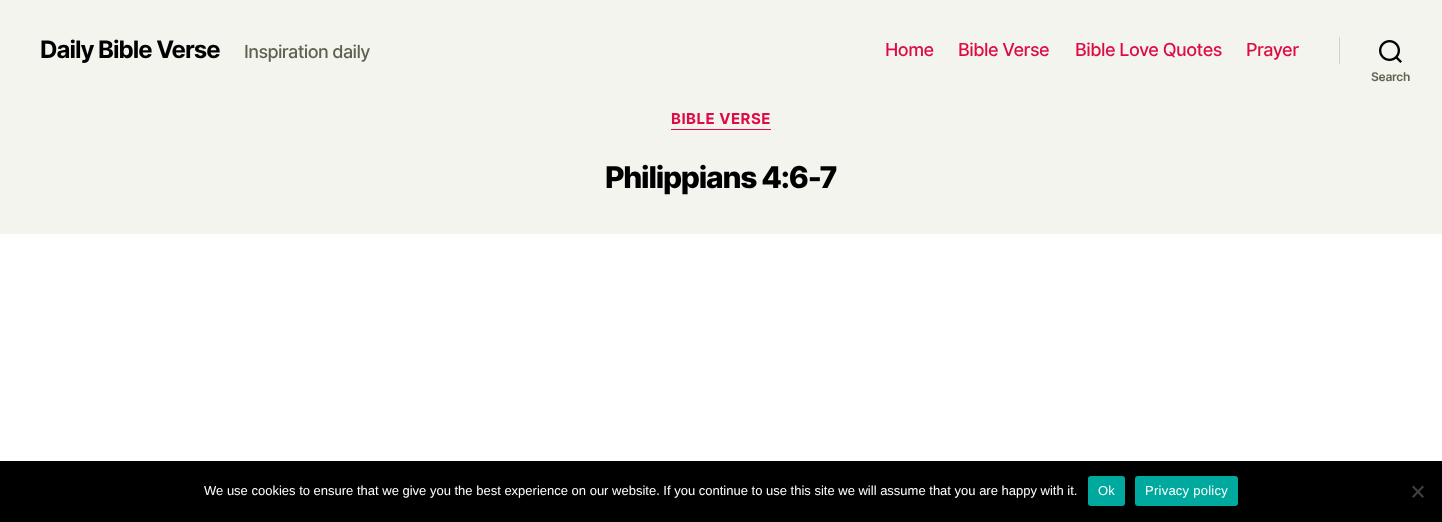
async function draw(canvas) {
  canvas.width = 1442
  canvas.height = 522
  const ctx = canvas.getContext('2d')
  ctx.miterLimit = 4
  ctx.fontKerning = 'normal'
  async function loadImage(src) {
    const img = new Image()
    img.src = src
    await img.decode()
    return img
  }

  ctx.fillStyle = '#fff'
  ctx.fillRect(0, 0, 1442, 522)
  ctx.fillStyle = '#f4f4ef'
  ctx.fillRect(0, 0, 1442, 234)
  ctx.letterSpacing = '-1px'
  ctx.font = 'bold 24px Inter'
  ctx.fillStyle = '#000'
  ctx.fillText('Daily Bible Verse', 40, 58)
  ctx.letterSpacing = '-0.6px'
  ctx.font = '500 18px Inter'
  ctx.fillStyle = '#616150'
  ctx.fillText('Inspiration daily', 244, 58)
  ctx.letterSpacing = '-0.5px'
  ctx.fillStyle = '#dd0c44'
  ctx.fillText('Home', 885, 56)
  ctx.fillText('Bible Verse', 958, 56)
  ctx.fillText('Bible Love Quotes', 1075, 56)
  ctx.fillText('Prayer', 1246, 56)
  ctx.fillStyle = '#d3d3bf'
  ctx.fillRect(1339, 37, 1, 27)
  ctx.drawImage(await loadImage('image0.png'), 1379, 40, 23, 23)
  ctx.letterSpacing = '-0.25px'
  ctx.font = '600 12px Inter'
  ctx.fillStyle = '#616150'
  ctx.fillText('Search', 1371, 81)
  ctx.fillStyle = '#dd0c44'
  ctx.fillRect(671, 129, 100, 1)
  ctx.letterSpacing = '0.5px'
  ctx.font = 'bold 15px Inter'
  ctx.fillText('BIBLE VERSE', 671, 124)
  ctx.letterSpacing = '-1.25px'
  ctx.font = '800 30px Inter'
  ctx.fillStyle = '#000'
  ctx.fillText('Philippians 4:6-7', 605, 188)
  ctx.fillRect(0, 461, 1442, 61)
  ctx.letterSpacing = '0px'
  ctx.font = '13px Liberation Sans'
  ctx.fillStyle = '#fff'
  ctx.fillText('We use cookies to ensure that we give you the best experience on our website. If you continue to use this site we will assume that you are happy with it.', 204, 495)
  ctx.fillStyle = '#00a99d'
  ctx.beginPath()
  ctx.roundRect(1088, 476, 37, 30, 3)
  ctx.fill()
  ctx.letterSpacing = '0.25px'
  ctx.fillStyle = '#fff'
  ctx.fillText('Ok', 1098, 495)
  ctx.fillStyle = '#00a99d'
  ctx.beginPath()
  ctx.roundRect(1135, 476, 103, 30, 3)
  ctx.fill()
  ctx.fillStyle = '#fff'
  ctx.fillText('Privacy policy', 1145, 495)
  ctx.fillStyle = '#404040'
  ctx.beginPath()
  ctx.moveTo(1422.5, 485.5)
  ctx.lineTo(1424, 487)
  ctx.lineTo(1413.5, 498)
  ctx.lineTo(1412, 496.5)
  ctx.closePath()
  ctx.fill()
  ctx.beginPath()
  ctx.moveTo(1412, 487)
  ctx.lineTo(1413.5, 485.5)
  ctx.lineTo(1424, 496.5)
  ctx.lineTo(1422.5, 498)
  ctx.closePath()
  ctx.fill()
}

draw(document.querySelector('canvas'))
